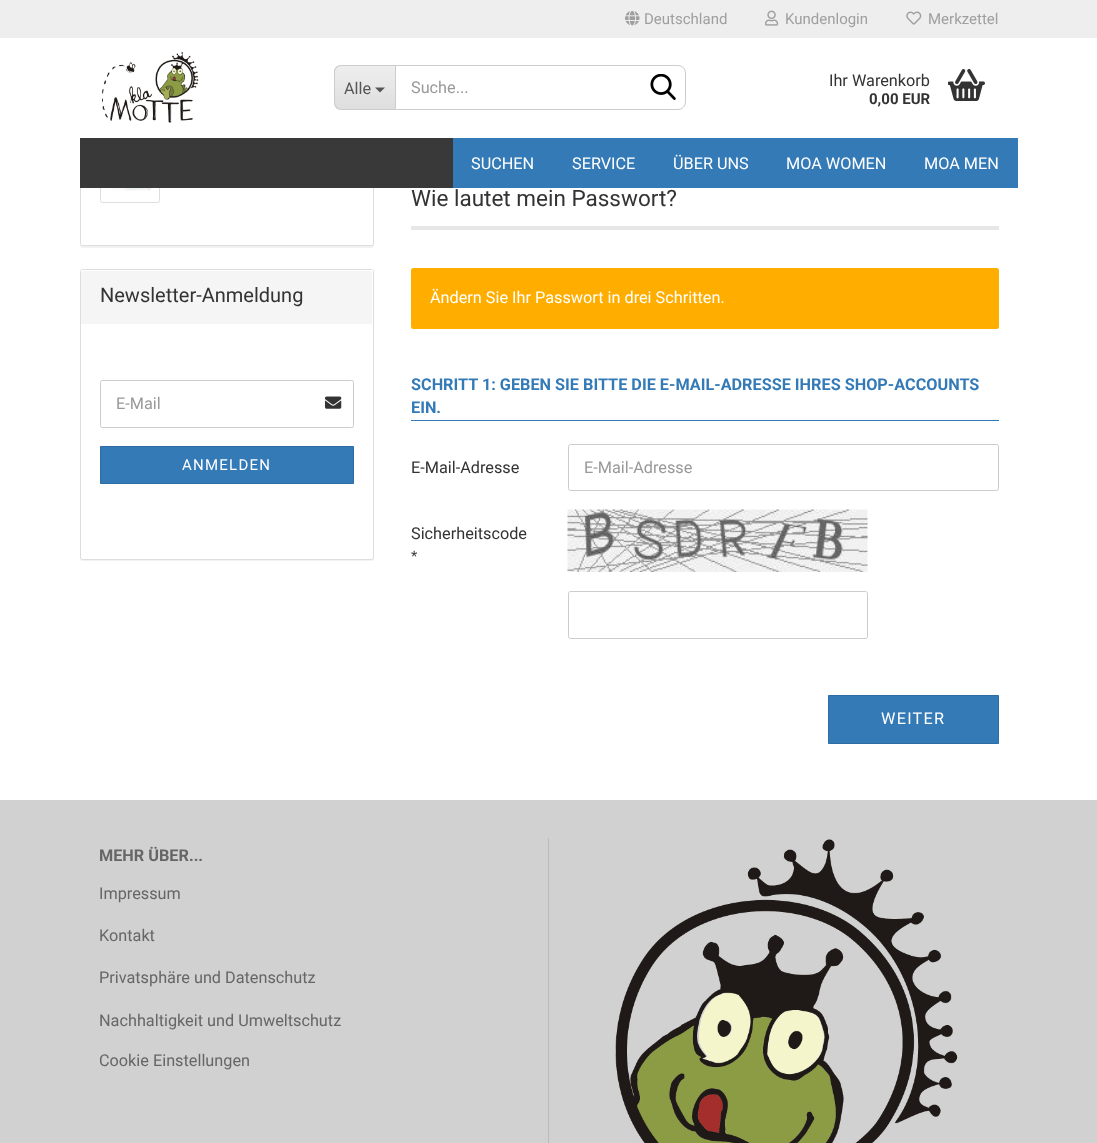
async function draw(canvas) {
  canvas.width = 1097
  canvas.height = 1143
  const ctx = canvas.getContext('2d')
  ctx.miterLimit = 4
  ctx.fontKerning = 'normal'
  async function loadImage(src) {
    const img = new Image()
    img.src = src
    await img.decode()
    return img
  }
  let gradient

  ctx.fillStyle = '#fff'
  ctx.fillRect(0, 0, 1097, 1143)
  ctx.fillStyle = '#0000000d'
  ctx.filter = 'blur(0.5px)'
  ctx.beginPath()
  ctx.roundRect(80, -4, 294, 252, 2.5)
  ctx.fill()
  ctx.filter = 'none'
  ctx.fillStyle = '#fff'
  ctx.beginPath()
  ctx.roundRect(80.5, -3.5, 293, 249, 2)
  ctx.fill()
  ctx.strokeStyle = '#ddd'
  ctx.stroke()
  ctx.beginPath()
  ctx.roundRect(100.5, 126.5, 59, 76, 2)
  ctx.stroke()
  ctx.fillRect(80, 38, 294, 150)
  ctx.fillStyle = '#eee'
  ctx.fillRect(0, 0, 1097, 38)
  ctx.drawImage(await loadImage('image0.png'), 625, 10, 15, 16)
  ctx.font = '15px Roboto'
  ctx.fillStyle = '#9f9f9f'
  ctx.fillText('Deutschland', 644, 24)
  ctx.drawImage(await loadImage('image1.png'), 765, 10, 14, 16)
  ctx.fillText('Kundenlogin', 785, 24)
  ctx.drawImage(await loadImage('image2.png'), 906, 11, 16, 14)
  ctx.fillText('Merkzettel', 928, 24)
  ctx.drawImage(await loadImage('image3.png'), 102, 52, 97, 71)
  ctx.save()
  ctx.beginPath()
  ctx.roundRect(334, 65, 61, 45, [8, 0, 0, 8])
  ctx.clip()
  gradient = ctx.createLinearGradient(365, 66, 365, 109)
  gradient.addColorStop(0, '#eee')
  gradient.addColorStop(1, '#dedede')
  ctx.fillStyle = gradient
  ctx.fillRect(334, 66, 61, 43)
  ctx.restore()
  ctx.fillStyle = '#ccc'
  ctx.beginPath()
  ctx.moveTo(341, 65)
  ctx.lineTo(395, 65)
  ctx.lineTo(395, 110)
  ctx.lineTo(341, 110)
  ctx.bezierCurveTo(337, 110, 334, 107, 334, 102)
  ctx.lineTo(334, 72)
  ctx.bezierCurveTo(334, 68, 337, 65, 341, 65)
  ctx.closePath()
  ctx.moveTo(341, 66)
  ctx.lineTo(395, 66)
  ctx.lineTo(395, 109)
  ctx.lineTo(341, 109)
  ctx.bezierCurveTo(338, 109, 335, 106, 335, 102)
  ctx.lineTo(335, 72)
  ctx.bezierCurveTo(335, 69, 338, 66, 341, 66)
  ctx.closePath()
  ctx.fill('evenodd')
  ctx.font = '16.25px Roboto'
  ctx.fillStyle = '#555'
  ctx.fillText('Alle', 344, 94)
  ctx.beginPath()
  ctx.moveTo(375, 87.5)
  ctx.lineTo(385, 87.5)
  ctx.lineTo(380, 92.5)
  ctx.closePath()
  ctx.fill()
  ctx.beginPath()
  ctx.roundRect(395.5, 65.5, 290, 44, [0, 7.5, 7.5, 0])
  ctx.strokeStyle = '#ccc'
  ctx.stroke()
  ctx.fillStyle = '#999'
  ctx.fillText('Suche...', 411, 93)
  ctx.drawImage(await loadImage('image4.png'), 650, 74, 26, 26)
  ctx.fillStyle = '#333'
  ctx.fillText('Ihr Warenkorb', 829, 86)
  ctx.font = 'bold 15px Roboto'
  ctx.fillText('0,00 EUR', 869, 104)
  ctx.drawImage(await loadImage('image5.png'), 948, 69, 37, 32)
  ctx.fillStyle = '#393939'
  ctx.fillRect(80, 138, 373, 50)
  ctx.fillStyle = '#337ab7'
  ctx.fillRect(453, 138, 565, 50)
  ctx.font = '16.25px Roboto'
  ctx.fillStyle = '#fff'
  ctx.fillText('SUCHEN', 471, 169)
  ctx.fillText('SERVICE', 572, 169)
  ctx.fillText('ÜBER UNS', 673, 169)
  ctx.fillText('MOA WOMEN', 786, 169)
  ctx.fillText('MOA MEN', 924, 169)
  ctx.drawImage(await loadImage('image6.png'), 112, 188, 40, 3)
  ctx.fillStyle = '#0000000d'
  ctx.filter = 'blur(0.5px)'
  ctx.beginPath()
  ctx.roundRect(80, 270, 294, 291, 2.5)
  ctx.fill()
  ctx.filter = 'none'
  ctx.fillStyle = '#fff'
  ctx.beginPath()
  ctx.roundRect(80.5, 269.5, 293, 290, 2)
  ctx.fill()
  ctx.strokeStyle = '#ddd'
  ctx.stroke()
  ctx.fillStyle = '#f5f5f5'
  ctx.beginPath()
  ctx.roundRect(81, 270, 292, 54, [1, 1, 0, 0])
  ctx.fill()
  ctx.fillStyle = '#fff'
  ctx.beginPath()
  ctx.moveTo(82, 271)
  ctx.lineTo(371, 271)
  ctx.bezierCurveTo(372, 271, 372, 272, 372, 272)
  ctx.lineTo(372, 324)
  ctx.lineTo(373, 324)
  ctx.lineTo(373, 271)
  ctx.bezierCurveTo(373, 270, 373, 270, 372, 270)
  ctx.lineTo(82, 270)
  ctx.bezierCurveTo(81, 270, 81, 270, 81, 271)
  ctx.lineTo(81, 272)
  ctx.closePath()
  ctx.fill()
  ctx.font = '20px Roboto'
  ctx.fillStyle = '#333'
  ctx.fillText('Newsletter-Anmeldung', 100, 302)
  ctx.beginPath()
  ctx.roundRect(100.5, 380.5, 253, 47, 2)
  ctx.strokeStyle = '#ccc'
  ctx.stroke()
  ctx.font = '16.25px Roboto'
  ctx.fillStyle = '#999'
  ctx.fillText('E-Mail', 116, 409)
  ctx.drawImage(await loadImage('image7.png'), 325, 396, 17, 13)
  ctx.fillStyle = '#337ab7'
  ctx.beginPath()
  ctx.rect(100.5, 446.5, 253, 37)
  ctx.fill()
  ctx.strokeStyle = '#2d6da3'
  ctx.stroke()
  ctx.letterSpacing = '1.25px'
  ctx.font = '15px Roboto'
  ctx.fillStyle = '#fff'
  ctx.fillText('ANMELDEN', 182, 470)
  ctx.fillStyle = '#e7e7e7'
  ctx.fillRect(411, 226, 588, 4)
  ctx.letterSpacing = '0px'
  ctx.font = '22.5px Roboto'
  ctx.fillStyle = '#333'
  ctx.fillText('Wie lautet mein Passwort?', 411, 206)
  ctx.fillStyle = '#ffae00'
  ctx.beginPath()
  ctx.roundRect(411, 268, 588, 61, 2.5)
  ctx.fill()
  ctx.font = '16.25px Roboto'
  ctx.fillStyle = '#fff'
  ctx.fillText('Ändern Sie Ihr Passwort in drei Schritten.', 430, 303)
  ctx.fillStyle = '#337ab7'
  ctx.fillRect(411, 420, 588, 1)
  ctx.font = 'bold 16.25px Roboto'
  ctx.fillText('SCHRITT 1: GEBEN SIE BITTE DIE E-MAIL-ADRESSE IHRES SHOP-ACCOUNTS', 411, 390)
  ctx.fillText('EIN.', 411, 413)
  ctx.font = '16.25px Roboto'
  ctx.fillStyle = '#333'
  ctx.fillText('E-Mail-Adresse', 411, 473)
  ctx.beginPath()
  ctx.roundRect(568.5, 444.5, 430, 46, 2)
  ctx.strokeStyle = '#ccc'
  ctx.stroke()
  ctx.fillStyle = '#999'
  ctx.fillText('E-Mail-Adresse', 584, 473)
  ctx.fillStyle = '#333'
  ctx.fillText('Sicherheitscode', 411, 539)
  ctx.font = '16.25px Liberation Sans'
  ctx.fillText('*', 411, 562)
  ctx.drawImage(await loadImage('image8.png'), 567, 509, 301, 63)
  ctx.beginPath()
  ctx.roundRect(568.5, 591.5, 299, 47, 2)
  ctx.stroke()
  ctx.fillStyle = '#337ab7'
  ctx.beginPath()
  ctx.rect(828.5, 695.5, 170, 48)
  ctx.fill()
  ctx.strokeStyle = '#2d6da3'
  ctx.stroke()
  ctx.letterSpacing = '1.25px'
  ctx.font = '16.25px Roboto'
  ctx.fillStyle = '#fff'
  ctx.fillText('WEITER', 881, 724)
  ctx.fillStyle = '#d1d1d1'
  ctx.fillRect(0, 800, 1097, 343)
  ctx.fillStyle = '#bbb'
  ctx.fillRect(548, 838, 1, 305)
  ctx.letterSpacing = '0px'
  ctx.font = 'bold 16.25px Roboto'
  ctx.fillStyle = '#666'
  ctx.fillText('MEHR ÜBER...', 99, 861)
  ctx.font = '16.25px Roboto'
  ctx.fillText('Impressum', 99, 899)
  ctx.fillText('Kontakt', 99, 941)
  ctx.fillText('Privatsphäre und Datenschutz', 99, 983)
  ctx.fillText('Nachhaltigkeit und Umweltschutz', 99, 1026)
  ctx.fillText('Cookie Einstellungen', 99, 1066)
  ctx.drawImage(await loadImage('image9.png'), 615, 839, 343, 304)
}

draw(document.querySelector('canvas'))
